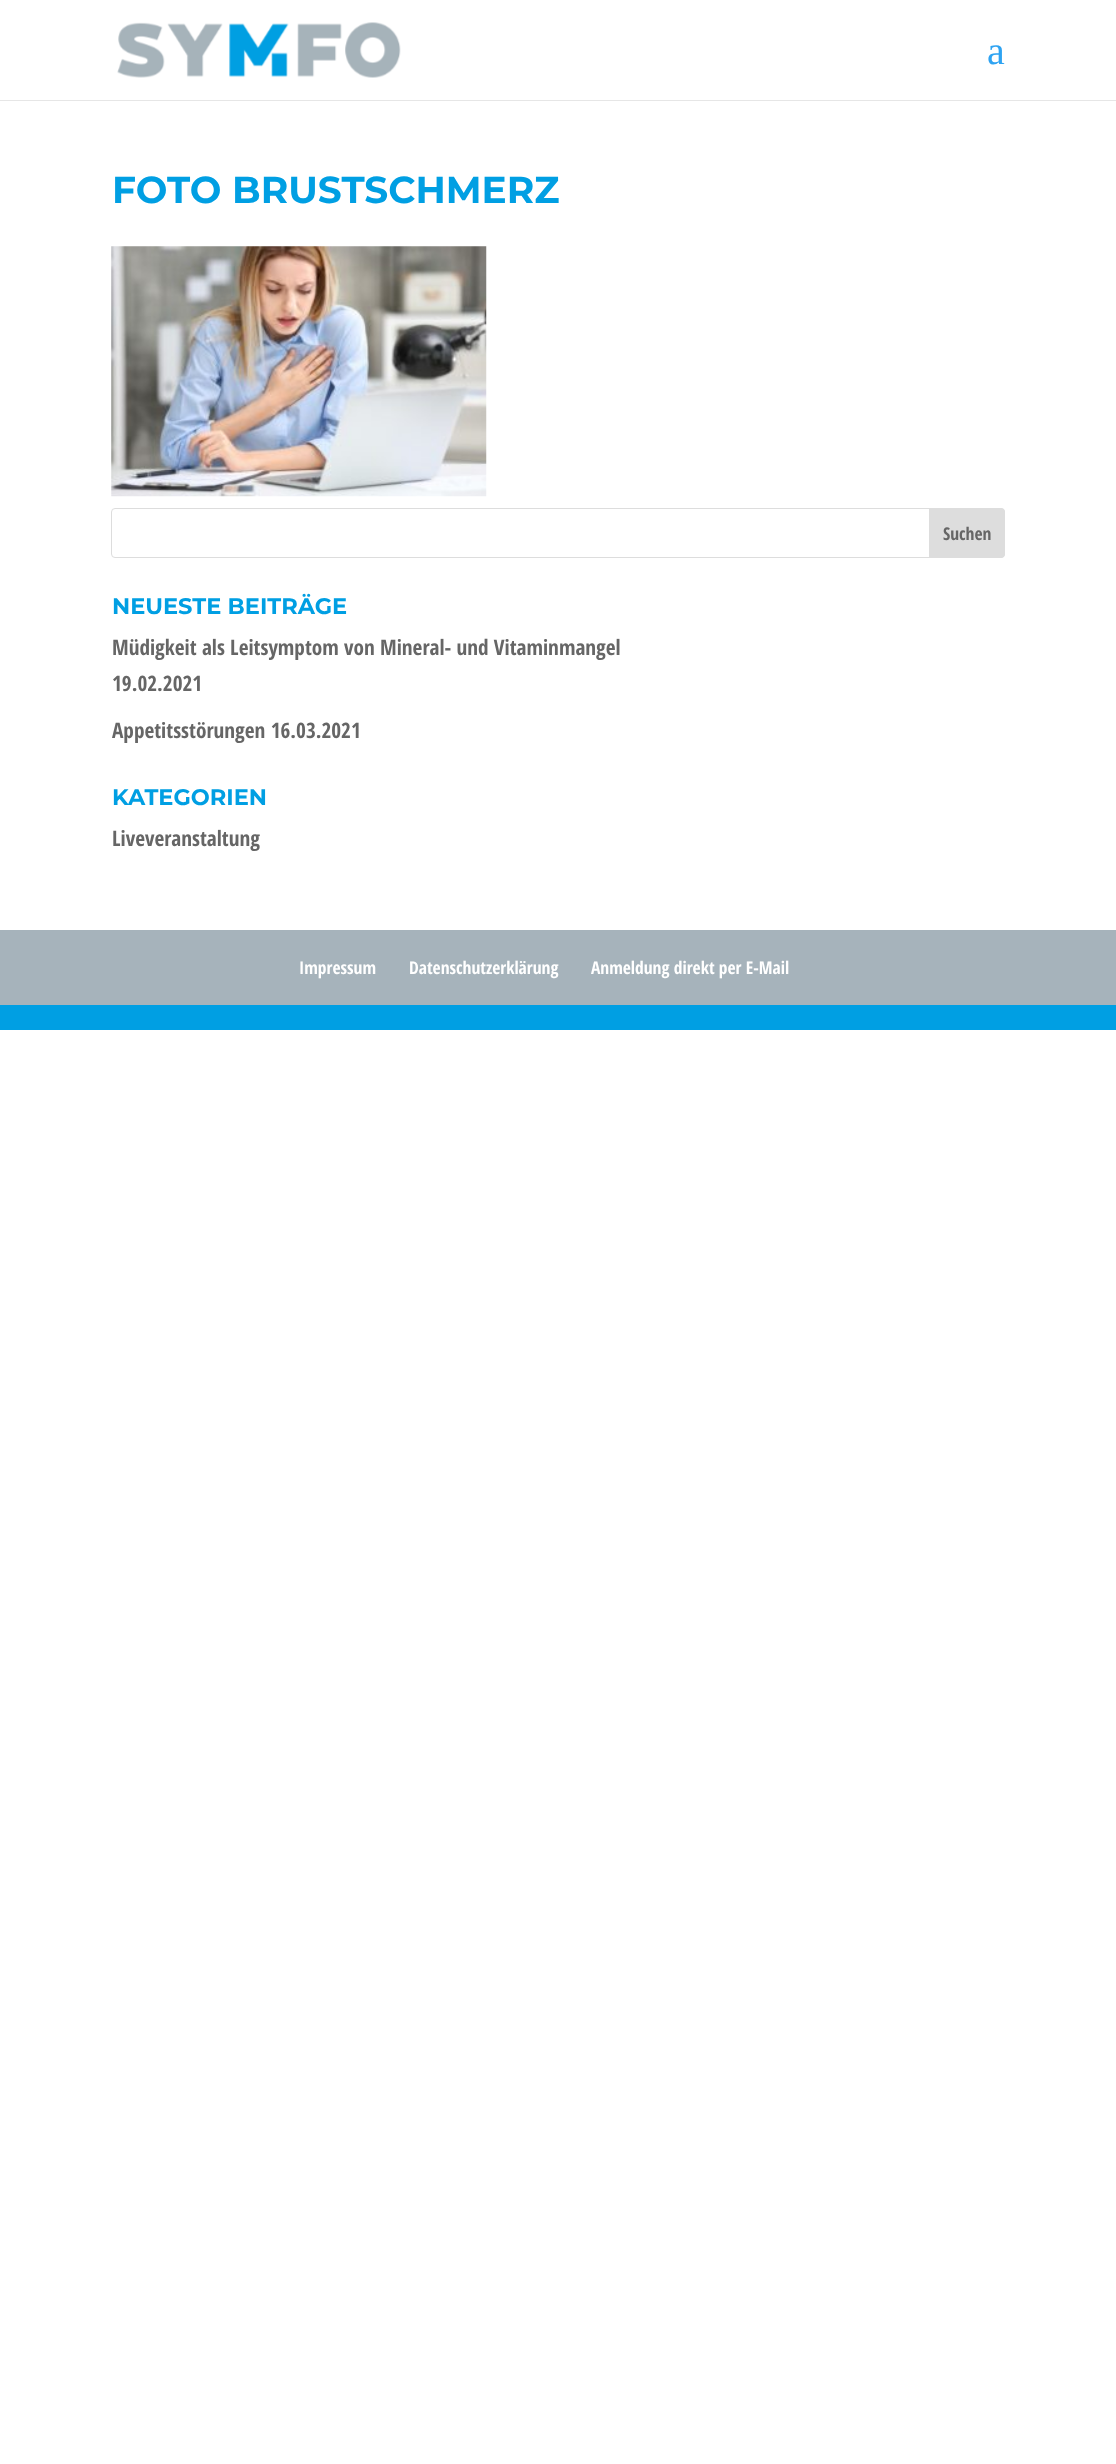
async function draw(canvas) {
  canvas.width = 1116
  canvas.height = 2464
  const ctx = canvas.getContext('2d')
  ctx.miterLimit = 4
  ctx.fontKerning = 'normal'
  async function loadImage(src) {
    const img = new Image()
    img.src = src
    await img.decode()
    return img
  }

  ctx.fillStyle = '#fff'
  ctx.fillRect(0, 0, 1116, 2464)
  ctx.fillStyle = '#e6e6e6'
  ctx.fillRect(0, 100, 1116, 1)
  ctx.drawImage(await loadImage('image0.png'), 117, 22, 284, 56)
  ctx.font = '40px Liberation Serif'
  ctx.fillStyle = '#2ea3f2'
  ctx.fillText('a', 987, 64)
  ctx.font = 'bold 37.5px Montserrat'
  ctx.fillStyle = '#009fe3'
  ctx.fillText('FOTO BRUSTSCHMERZ', 112, 203)
  ctx.drawImage(await loadImage('image1.png'), 111, 246, 376, 251)
  ctx.beginPath()
  ctx.roundRect(111.5, 508.5, 893, 49, 3.5)
  ctx.strokeStyle = '#ddd'
  ctx.stroke()
  ctx.fillStyle = '#ddd'
  ctx.beginPath()
  ctx.roundRect(929.5, 508.5, 75, 49, [0, 3.5, 3.5, 0])
  ctx.fill()
  ctx.stroke()
  ctx.font = 'bold 17.5px Open Sans Condensed'
  ctx.fillStyle = '#666'
  ctx.fillText('Suchen', 943, 540)
  ctx.font = 'bold 22.5px Montserrat'
  ctx.fillStyle = '#009fe3'
  ctx.fillText('NEUESTE BEITRÄGE', 112, 614)
  ctx.font = 'bold 21.25px Open Sans Condensed'
  ctx.fillStyle = '#666'
  ctx.fillText('Müdigkeit als Leitsymptom von Mineral- und Vitaminmangel', 112, 655)
  ctx.fillText('19.02.2021', 112, 691)
  ctx.fillText('Appetitsstörungen 16.03.2021', 112, 738)
  ctx.font = 'bold 22.5px Montserrat'
  ctx.fillStyle = '#009fe3'
  ctx.fillText('KATEGORIEN', 112, 805)
  ctx.font = 'bold 21.25px Open Sans Condensed'
  ctx.fillStyle = '#666'
  ctx.fillText('Liveveranstaltung', 112, 846)
  ctx.fillStyle = '#a6b3bb'
  ctx.fillRect(0, 930, 1116, 75)
  ctx.font = 'bold 17.5px Open Sans Condensed'
  ctx.fillStyle = '#fff'
  ctx.fillText('Impressum', 299, 974)
  ctx.fillText('Datenschutzerklärung', 409, 974)
  ctx.fillText('Anmeldung direkt per E-Mail', 591, 974)
  ctx.fillStyle = '#009fe3'
  ctx.fillRect(0, 1005, 1116, 25)
}

draw(document.querySelector('canvas'))
